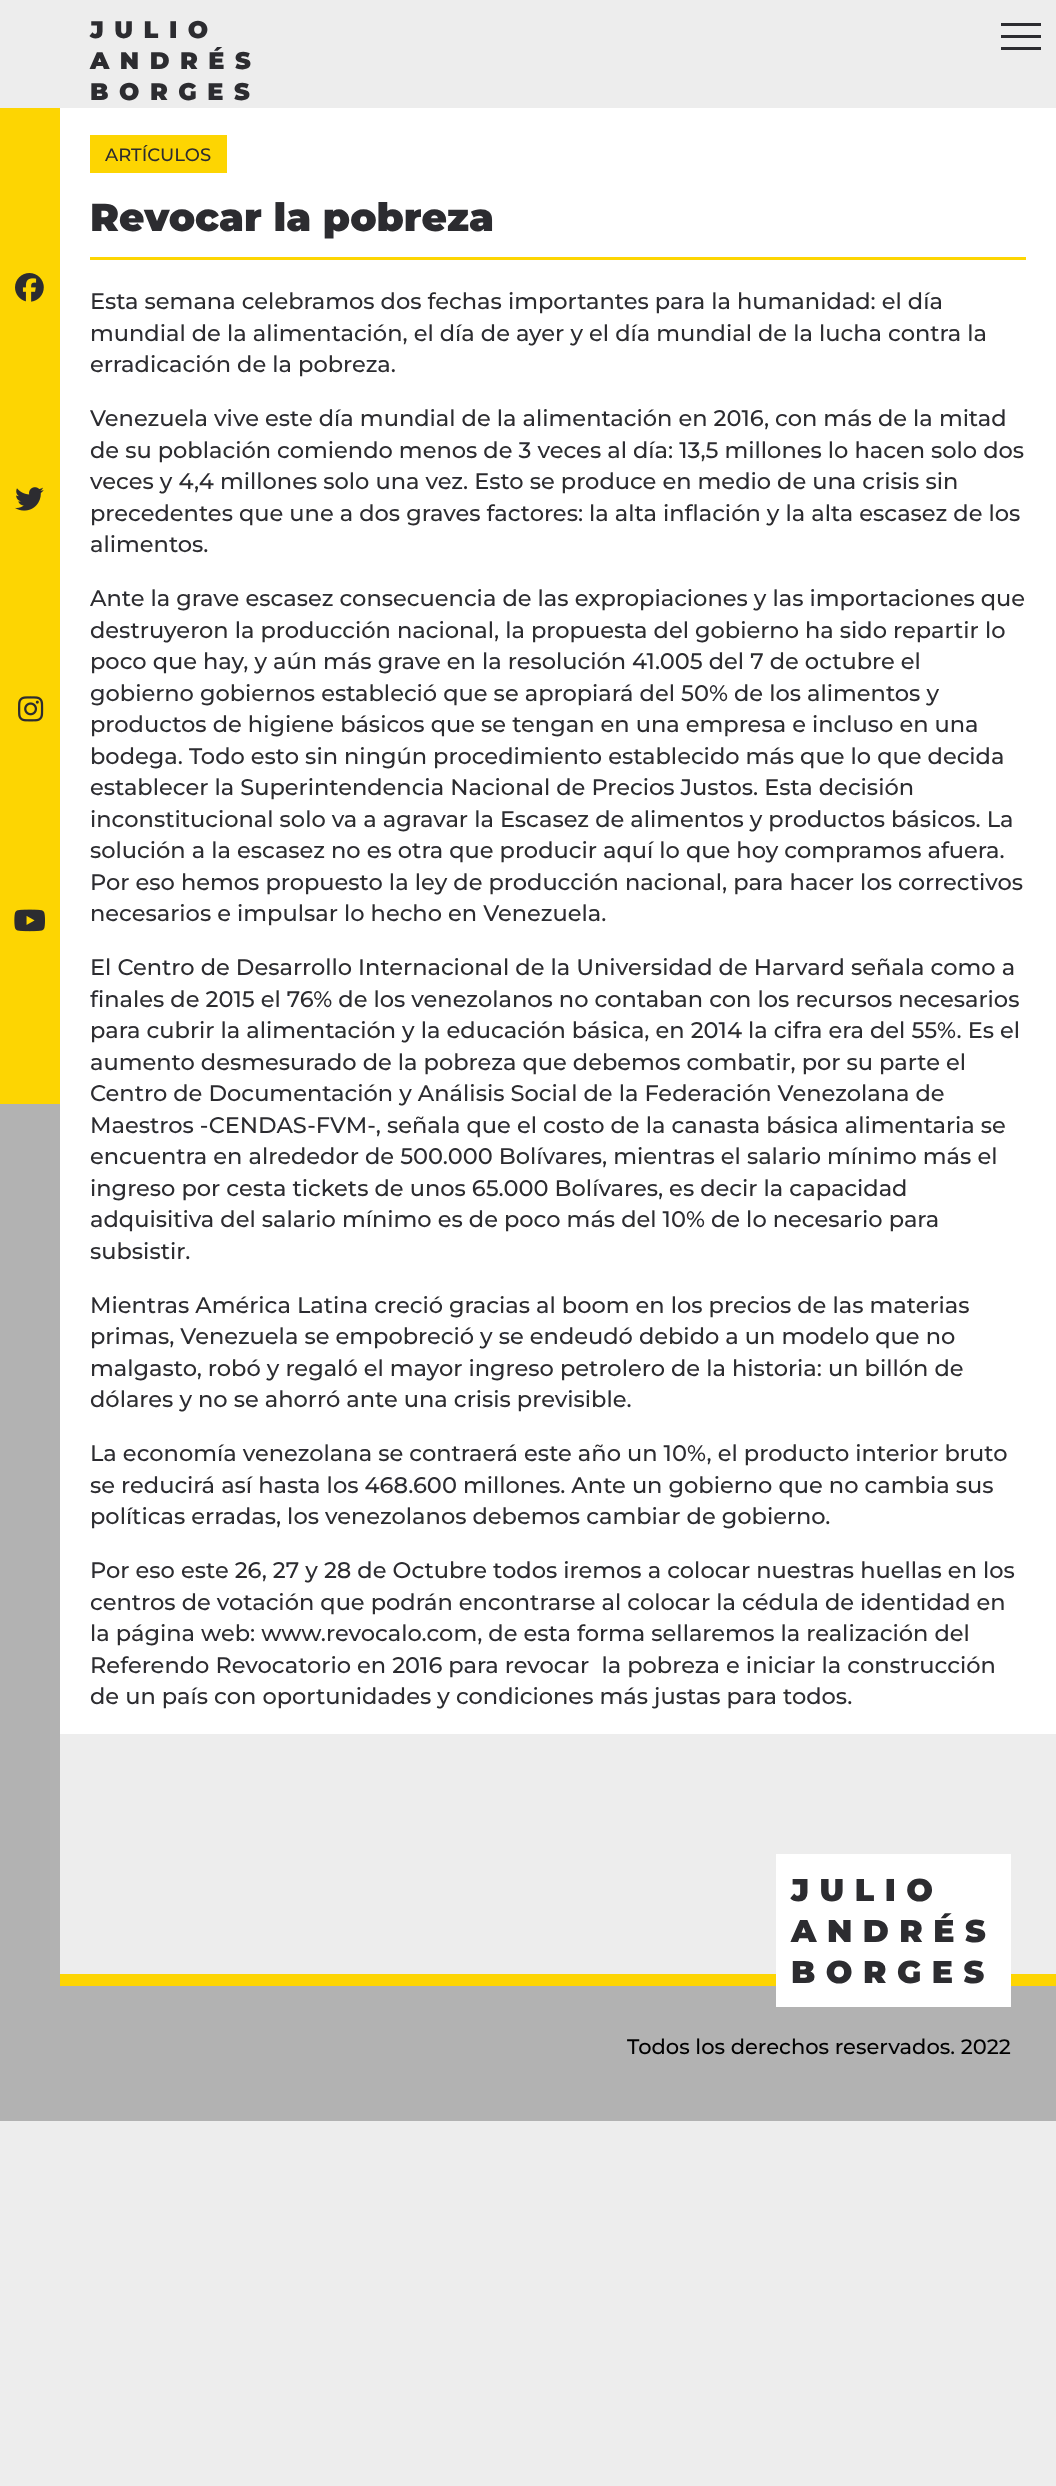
async function draw(canvas) {
  canvas.width = 1056
  canvas.height = 2486
  const ctx = canvas.getContext('2d')
  ctx.miterLimit = 4
  ctx.fontKerning = 'normal'
  async function loadImage(src) {
    const img = new Image()
    img.src = src
    await img.decode()
    return img
  }

  ctx.fillStyle = '#ededed'
  ctx.fillRect(0, 0, 1056, 2486)
  ctx.letterSpacing = '10.5px'
  ctx.font = '900 24px Montserrat'
  ctx.fillStyle = '#2c2c30'
  ctx.fillText('JULIO', 90, 38)
  ctx.fillText('ANDRÉS', 90, 69)
  ctx.fillText('BORGES', 90, 100)
  ctx.fillRect(1001, 23, 40, 3)
  ctx.fillRect(1001, 35, 40, 3)
  ctx.fillRect(1001, 47, 40, 3)
  ctx.fillStyle = '#fdd502'
  ctx.fillRect(0, 108, 60, 996)
  ctx.fillStyle = '#b2b2b2'
  ctx.fillRect(0, 1104, 60, 882)
  ctx.drawImage(await loadImage('image0.png'), 15, 273, 29, 29)
  ctx.drawImage(await loadImage('image1.png'), 15, 487, 29, 24)
  ctx.drawImage(await loadImage('image2.png'), 18, 696, 26, 26)
  ctx.drawImage(await loadImage('image3.png'), 14, 909, 31, 23)
  ctx.fillStyle = '#fff'
  ctx.fillRect(60, 108, 996, 1626)
  ctx.fillStyle = '#fdd502'
  ctx.fillRect(90, 135, 137, 38)
  ctx.letterSpacing = '0px'
  ctx.font = '500 18px Montserrat'
  ctx.fillStyle = '#2c2c30'
  ctx.fillText('ARTÍCULOS', 105, 161)
  ctx.fillStyle = '#fdd502'
  ctx.fillRect(90, 257, 936, 3)
  ctx.font = '900 39px Montserrat'
  ctx.fillStyle = '#2c2c30'
  ctx.fillText('Revocar la pobreza', 90, 231)
  ctx.font = '500 22.5px Montserrat'
  ctx.fillText('Esta semana celebramos dos fechas importantes para la humanidad: el día', 90, 309)
  ctx.fillText('mundial de la alimentación, el día de ayer y el día mundial de la lucha contra la', 90, 341)
  ctx.fillText('erradicación de la pobreza.', 90, 372)
  ctx.fillText('Venezuela vive este día mundial de la alimentación en 2016, con más de la mitad', 90, 426)
  ctx.fillText('de su población comiendo menos de 3 veces al día: 13,5 millones lo hacen solo dos', 90, 458)
  ctx.fillText('veces y 4,4 millones solo una vez. Esto se produce en medio de una crisis sin', 90, 489)
  ctx.fillText('precedentes que une a dos graves factores: la alta inflación y la alta escasez de los', 90, 521)
  ctx.fillText('alimentos.', 90, 552)
  ctx.fillText('Ante la grave escasez consecuencia de las expropiaciones y las importaciones que', 90, 606)
  ctx.fillText('destruyeron la producción nacional, la propuesta del gobierno ha sido repartir lo', 90, 638)
  ctx.fillText('poco que hay, y aún más grave en la resolución 41.005 del 7 de octubre el', 90, 669)
  ctx.fillText('gobierno gobiernos estableció que se apropiará del 50% de los alimentos y', 90, 701)
  ctx.fillText('productos de higiene básicos que se tengan en una empresa e incluso en una', 90, 732)
  ctx.fillText('bodega. Todo esto sin ningún procedimiento establecido más que lo que decida', 90, 764)
  ctx.fillText('establecer la Superintendencia Nacional de Precios Justos. Esta decisión', 90, 795)
  ctx.fillText('inconstitucional solo va a agravar la Escasez de alimentos y productos básicos. La', 90, 827)
  ctx.fillText('solución a la escasez no es otra que producir aquí lo que hoy compramos afuera.', 90, 858)
  ctx.fillText('Por eso hemos propuesto la ley de producción nacional, para hacer los correctivos', 90, 890)
  ctx.fillText('necesarios e impulsar lo hecho en Venezuela.', 90, 921)
  ctx.fillText('El Centro de Desarrollo Internacional de la Universidad de Harvard señala como a', 90, 975)
  ctx.fillText('finales de 2015 el 76% de los venezolanos no contaban con los recursos necesarios', 90, 1007)
  ctx.fillText('para cubrir la alimentación y la educación básica, en 2014 la cifra era del 55%. Es el', 90, 1038)
  ctx.fillText('aumento desmesurado de la pobreza que debemos combatir, por su parte el', 90, 1070)
  ctx.fillText('Centro de Documentación y Análisis Social de la Federación Venezolana de', 90, 1101)
  ctx.fillText('Maestros -CENDAS-FVM-, señala que el costo de la canasta básica alimentaria se', 90, 1133)
  ctx.fillText('encuentra en alrededor de 500.000 Bolívares, mientras el salario mínimo más el', 90, 1164)
  ctx.fillText('ingreso por cesta tickets de unos 65.000 Bolívares, es decir la capacidad', 90, 1196)
  ctx.fillText('adquisitiva del salario mínimo es de poco más del 10% de lo necesario para', 90, 1227)
  ctx.fillText('subsistir.', 90, 1259)
  ctx.fillText('Mientras América Latina creció gracias al boom en los precios de las materias', 90, 1313)
  ctx.fillText('primas, Venezuela se empobreció y se endeudó debido a un modelo que no', 90, 1344)
  ctx.fillText('malgasto, robó y regaló el mayor ingreso petrolero de la historia: un billón de', 90, 1376)
  ctx.fillText('dólares y no se ahorró ante una crisis previsible.', 90, 1407)
  ctx.fillText('La economía venezolana se contraerá este año un 10%, el producto interior bruto', 90, 1461)
  ctx.fillText('se reducirá así hasta los 468.600 millones. Ante un gobierno que no cambia sus', 90, 1493)
  ctx.fillText('políticas erradas, los venezolanos debemos cambiar de gobierno.', 90, 1524)
  ctx.fillText('Por eso este 26, 27 y 28 de Octubre todos iremos a colocar nuestras huellas en los', 90, 1578)
  ctx.fillText('centros de votación que podrán encontrarse al colocar la cédula de identidad en', 90, 1610)
  ctx.fillText('la página web: www.revocalo.com, de esta forma sellaremos la realización del', 90, 1641)
  ctx.fillText('Referendo Revocatorio en 2016 para revocar  la pobreza e iniciar la construcción', 90, 1673)
  ctx.fillText('de un país con oportunidades y condiciones más justas para todos.', 90, 1704)
  ctx.fillStyle = '#b2b2b2'
  ctx.fillRect(0, 1986, 1056, 135)
  ctx.fillStyle = '#fdd502'
  ctx.fillRect(60, 1974, 996, 12)
  ctx.fillStyle = '#fff'
  ctx.fillRect(776, 1854, 235, 153)
  ctx.letterSpacing = '10.5px'
  ctx.font = '900 31.5px Montserrat'
  ctx.fillStyle = '#2c2c30'
  ctx.fillText('JULIO', 791, 1901)
  ctx.fillText('ANDRÉS', 791, 1942)
  ctx.fillText('BORGES', 791, 1983)
  ctx.letterSpacing = '0px'
  ctx.font = '500 21px Montserrat'
  ctx.fillStyle = '#000'
  ctx.fillText('Todos los derechos reservados. 2022', 627, 2054)
}

draw(document.querySelector('canvas'))
